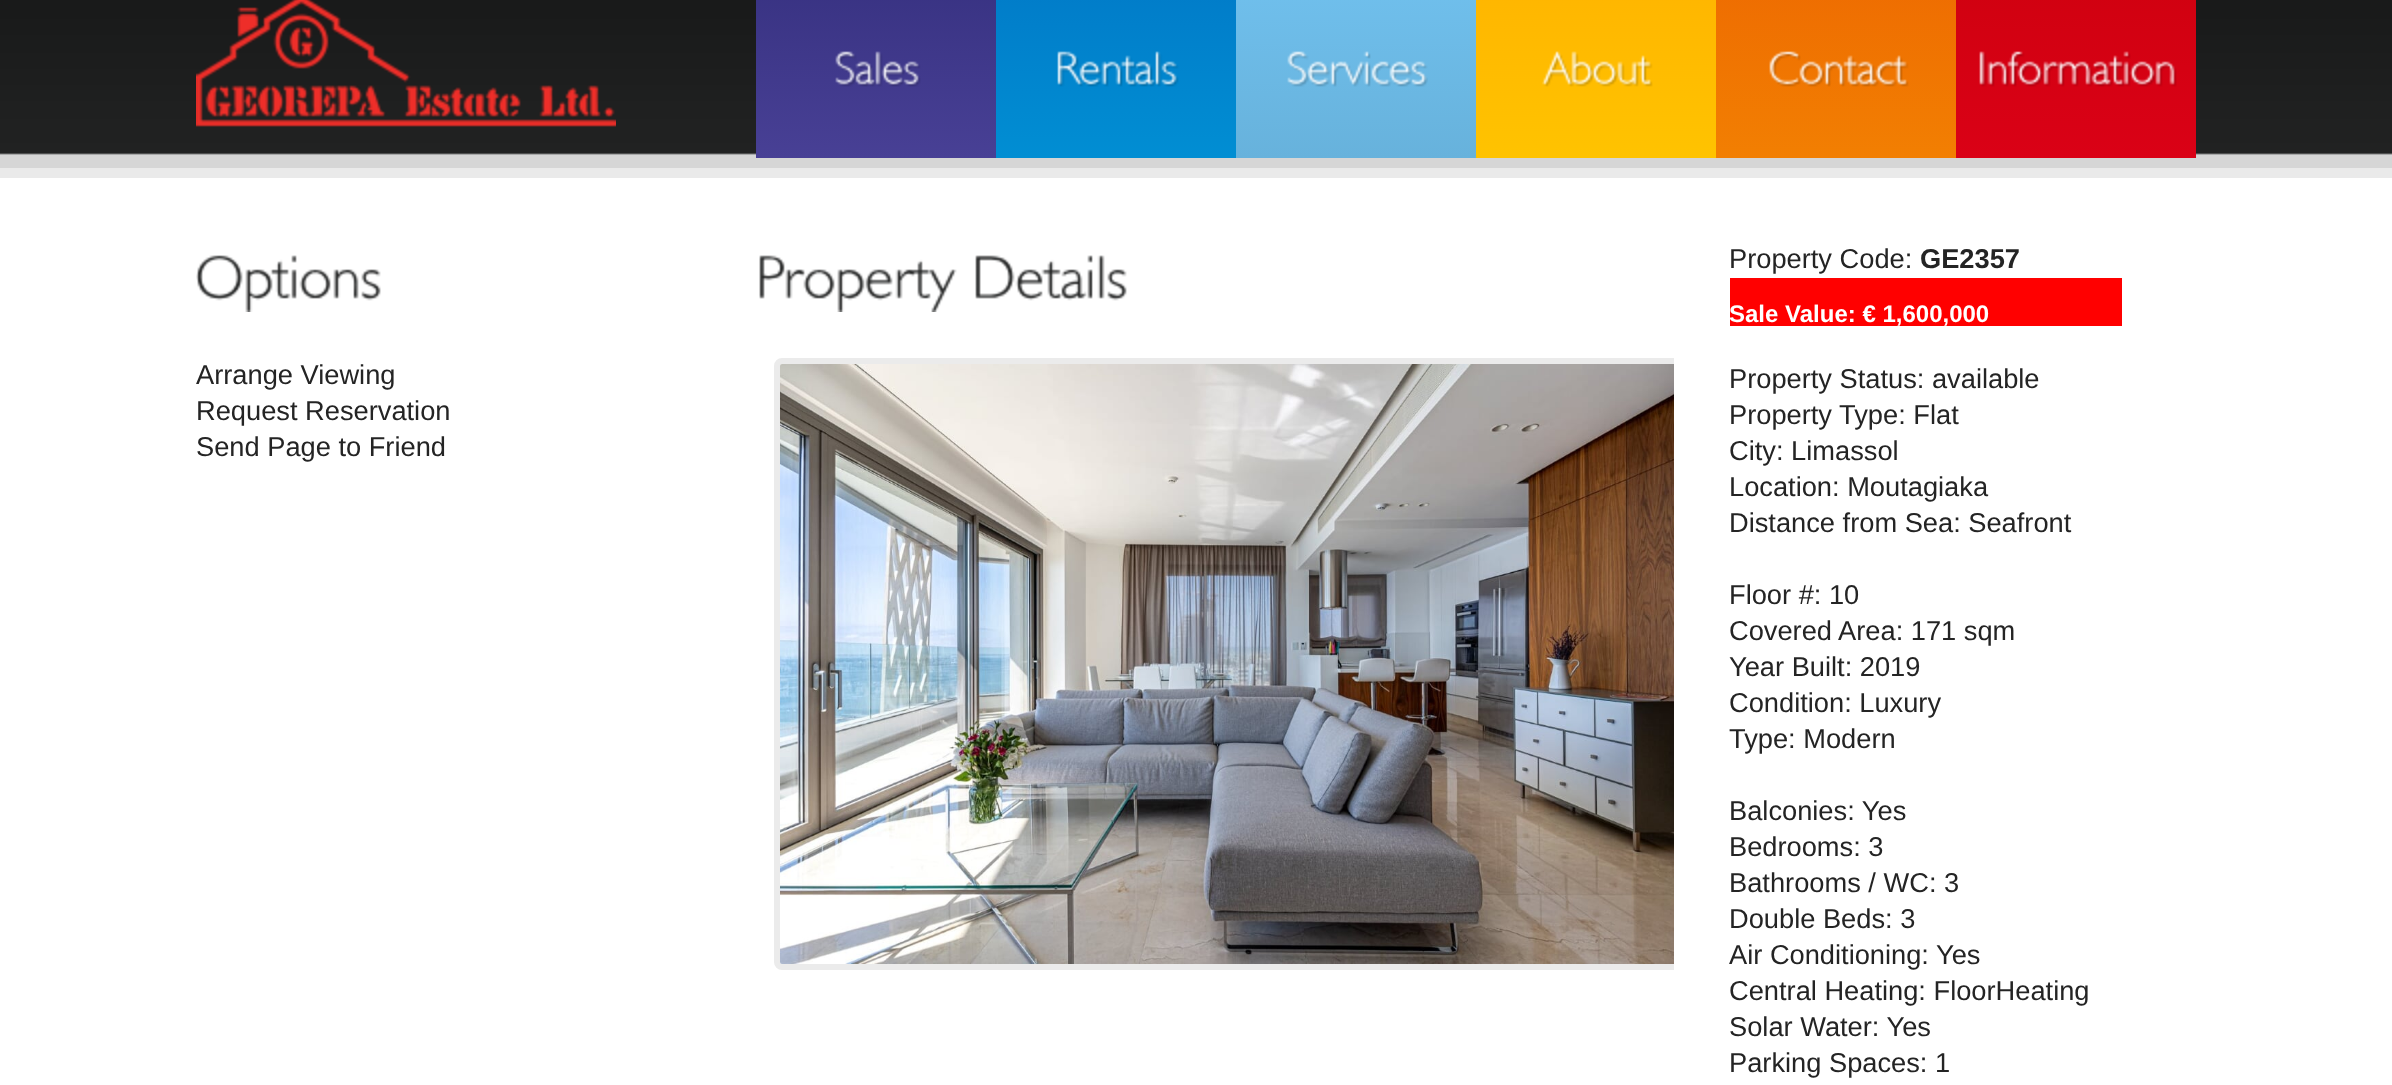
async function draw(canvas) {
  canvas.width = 2392
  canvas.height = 1085
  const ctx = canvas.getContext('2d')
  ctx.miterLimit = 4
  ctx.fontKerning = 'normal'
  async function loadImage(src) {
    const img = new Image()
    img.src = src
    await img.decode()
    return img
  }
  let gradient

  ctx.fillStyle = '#fff'
  ctx.fillRect(0, 0, 2392, 1085)
  ctx.drawImage(await loadImage('image0.png'), 0, 0, 2392, 168)
  ctx.drawImage(await loadImage('image1.png'), 196, 0, 420, 127)
  gradient = ctx.createLinearGradient(756, -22, 756, 158)
  gradient.addColorStop(0, '#383282')
  gradient.addColorStop(1, '#484095')
  ctx.fillStyle = gradient
  ctx.fillRect(756, 0, 240, 158)
  ctx.drawImage(await loadImage('image2.png'), 835, 51, 86, 36)
  gradient = ctx.createLinearGradient(996, -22, 996, 158)
  gradient.addColorStop(0, '#017bc8')
  gradient.addColorStop(1, '#018ed3')
  ctx.fillStyle = gradient
  ctx.fillRect(996, 0, 240, 158)
  ctx.drawImage(await loadImage('image3.png'), 1057, 51, 122, 36)
  gradient = ctx.createLinearGradient(1236, -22, 1236, 158)
  gradient.addColorStop(0, '#70c0ed')
  gradient.addColorStop(1, '#67b2dc')
  ctx.fillStyle = gradient
  ctx.fillRect(1236, 0, 240, 158)
  ctx.drawImage(await loadImage('image4.png'), 1287, 51, 141, 36)
  gradient = ctx.createLinearGradient(1476, -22, 1476, 158)
  gradient.addColorStop(0, '#ffb500')
  gradient.addColorStop(1, '#ffc300')
  ctx.fillStyle = gradient
  ctx.fillRect(1476, 0, 240, 158)
  ctx.drawImage(await loadImage('image5.png'), 1542, 51, 111, 36)
  gradient = ctx.createLinearGradient(1716, -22, 1716, 158)
  gradient.addColorStop(0, '#ee6c01')
  gradient.addColorStop(1, '#f27f02')
  ctx.fillStyle = gradient
  ctx.fillRect(1716, 0, 240, 158)
  ctx.drawImage(await loadImage('image6.png'), 1769, 51, 140, 36)
  gradient = ctx.createLinearGradient(1956, -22, 1956, 158)
  gradient.addColorStop(0, '#d00110')
  gradient.addColorStop(1, '#da0116')
  ctx.fillStyle = gradient
  ctx.fillRect(1956, 0, 240, 158)
  ctx.drawImage(await loadImage('image7.png'), 1979, 51, 198, 36)
  ctx.fillStyle = '#eaeaea'
  ctx.fillRect(0, 168, 2392, 10)
  ctx.drawImage(await loadImage('image8.png'), 196, 255, 185, 57)
  ctx.font = '27.25px Liberation Sans'
  ctx.fillStyle = '#242424'
  ctx.fillText('Arrange Viewing', 196, 384)
  ctx.fillText('Request Reservation', 196, 420)
  ctx.fillText('Send Page to Friend', 196, 456)
  ctx.drawImage(await loadImage('image9.png'), 759, 255, 198, 57)
  ctx.drawImage(await loadImage('image10.png'), 975, 255, 152, 46)
  ctx.save()
  ctx.beginPath()
  ctx.rect(774, 358, 900, 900)
  ctx.clip()
  ctx.beginPath()
  ctx.roundRect(777, 361, 906, 606, 5)
  ctx.strokeStyle = '#ebebeb'
  ctx.lineWidth = 6
  ctx.stroke()
  ctx.restore()
  ctx.drawImage(await loadImage('image11.png'), 780, 364, 894, 600)
  ctx.fillText('Property Code:', 1729, 268)
  ctx.font = 'bold 27.25px Liberation Sans'
  ctx.fillText('GE2357', 1920, 268)
  ctx.fillStyle = '#f00'
  ctx.fillRect(1730, 278, 392, 48)
  ctx.font = 'bold 24px Liberation Sans'
  ctx.fillStyle = '#fff'
  ctx.fillText('Sale Value: € 1,600,000', 1729, 322)
  ctx.font = '27.25px Liberation Sans'
  ctx.fillStyle = '#242424'
  ctx.fillText('Property Status: available', 1729, 388)
  ctx.fillText('Property Type: Flat', 1729, 424)
  ctx.fillText('City: Limassol', 1729, 460)
  ctx.fillText('Location: Moutagiaka', 1729, 496)
  ctx.fillText('Distance from Sea: Seafront', 1729, 532)
  ctx.fillText('Floor #: 10', 1729, 604)
  ctx.fillText('Covered Area: 171 sqm', 1729, 640)
  ctx.fillText('Year Built: 2019', 1729, 676)
  ctx.fillText('Condition: Luxury', 1729, 712)
  ctx.fillText('Type: Modern', 1729, 748)
  ctx.fillText('Balconies: Yes', 1729, 820)
  ctx.fillText('Bedrooms: 3', 1729, 856)
  ctx.fillText('Bathrooms / WC: 3', 1729, 892)
  ctx.fillText('Double Beds: 3', 1729, 928)
  ctx.fillText('Air Conditioning: Yes', 1729, 964)
  ctx.fillText('Central Heating: FloorHeating', 1729, 1000)
  ctx.fillText('Solar Water: Yes', 1729, 1036)
  ctx.fillText('Parking Spaces: 1', 1729, 1072)
}

draw(document.querySelector('canvas'))
